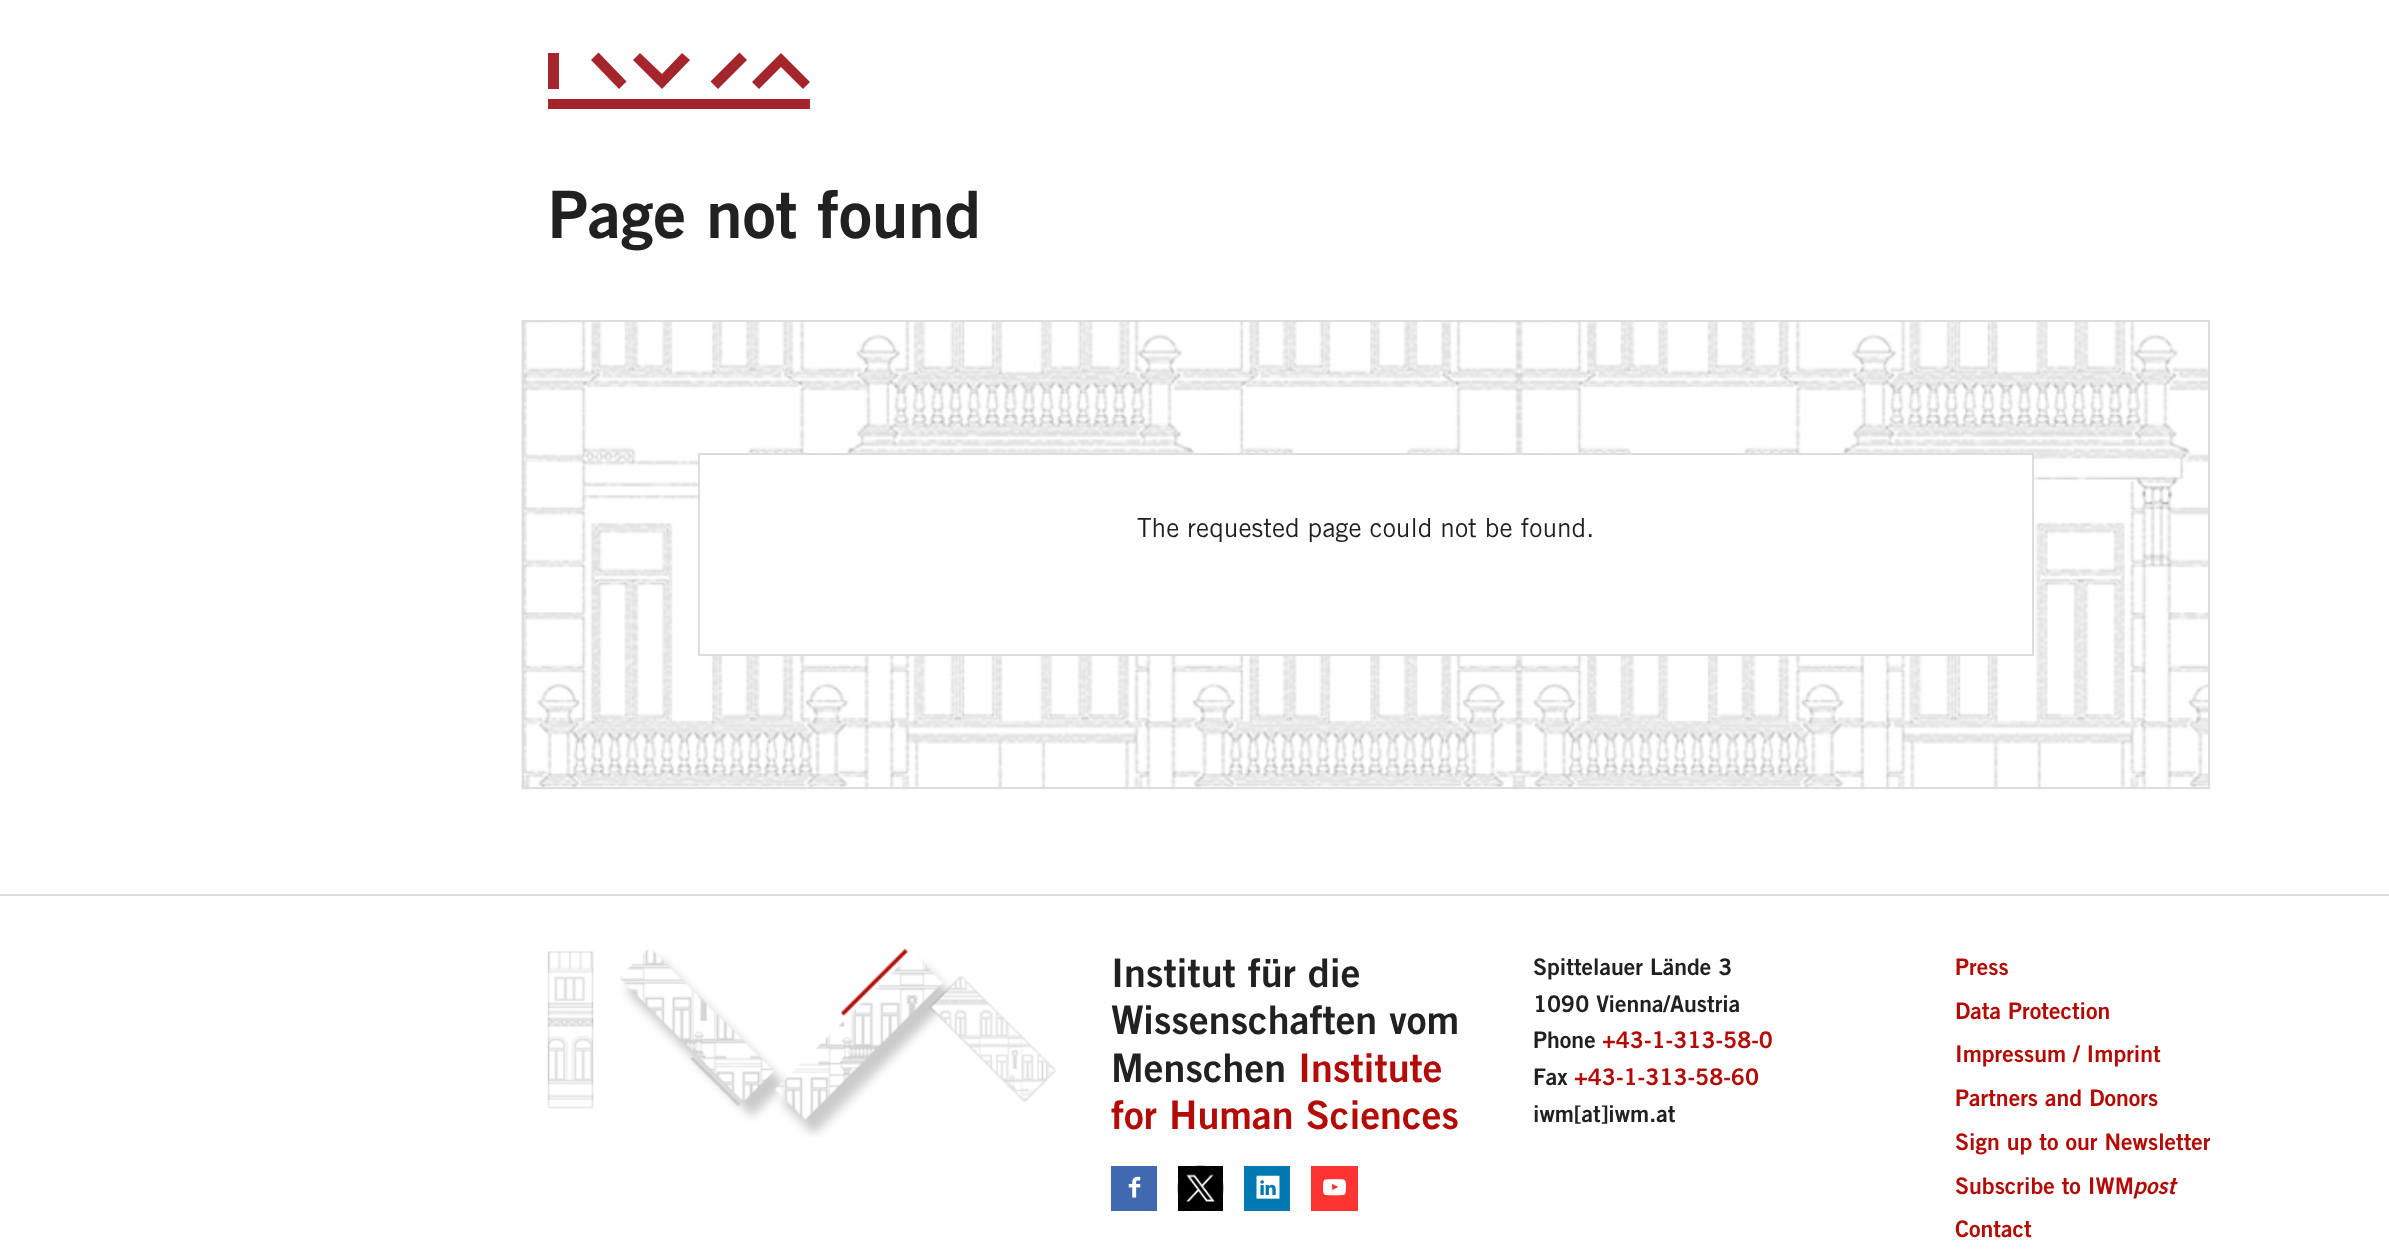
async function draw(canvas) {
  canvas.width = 2389
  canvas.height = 1249
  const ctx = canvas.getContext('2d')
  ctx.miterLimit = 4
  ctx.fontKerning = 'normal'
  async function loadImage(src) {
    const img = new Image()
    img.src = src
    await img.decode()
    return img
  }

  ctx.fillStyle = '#fff'
  ctx.fillRect(0, 0, 2389, 1249)
  ctx.fillStyle = '#a4262c'
  ctx.fillRect(548, 53, 11, 36)
  ctx.beginPath()
  ctx.moveTo(619, 89)
  ctx.lineTo(591, 60)
  ctx.lineTo(598.5, 52.5)
  ctx.lineTo(626.5, 81.5)
  ctx.closePath()
  ctx.fill()
  ctx.beginPath()
  ctx.moveTo(662, 89)
  ctx.lineTo(633, 60)
  ctx.lineTo(640, 53)
  ctx.lineTo(662, 74)
  ctx.lineTo(682, 53)
  ctx.lineTo(690, 60)
  ctx.closePath()
  ctx.fill()
  ctx.beginPath()
  ctx.moveTo(718, 89)
  ctx.lineTo(710.5, 81.5)
  ctx.lineTo(739.5, 52.5)
  ctx.lineTo(747, 60)
  ctx.closePath()
  ctx.fill()
  ctx.beginPath()
  ctx.moveTo(803, 89)
  ctx.lineTo(781, 67)
  ctx.lineTo(759, 89)
  ctx.lineTo(752, 82)
  ctx.lineTo(781, 53)
  ctx.lineTo(810, 82)
  ctx.closePath()
  ctx.fill()
  ctx.fillRect(548, 99, 262, 10)
  ctx.font = 'bold 65.5px Trade Gothic'
  ctx.fillStyle = '#212121'
  ctx.fillText('Page not found', 548, 238)
  ctx.drawImage(await loadImage('image0.png'), 521, 320, 1690, 470)
  ctx.strokeStyle = '#ddd'
  ctx.lineWidth = 2
  ctx.strokeRect(523, 321, 1686, 467)
  ctx.fillStyle = '#fff'
  ctx.beginPath()
  ctx.rect(699, 454, 1334, 201)
  ctx.fill()
  ctx.stroke()
  ctx.font = '26.25px Trade Gothic'
  ctx.fillStyle = '#212121'
  ctx.fillText('The requested page could not be found.', 1137, 537)
  ctx.fillStyle = '#ddd'
  ctx.fillRect(0, 894, 2389, 2)
  ctx.drawImage(await loadImage('image1.png'), 547, 948, 509, 190)
  ctx.font = 'bold 39.4px Trade Gothic'
  ctx.fillStyle = '#212121'
  ctx.fillText('Institut für die', 1111, 987)
  ctx.fillText('Wissenschaften vom', 1111, 1034)
  ctx.fillText('Menschen', 1111, 1082)
  ctx.fillStyle = '#b30c06'
  ctx.fillText('Institute', 1298, 1082)
  ctx.fillText('for Human Sciences', 1111, 1129)
  ctx.fillStyle = '#4169af'
  ctx.fillRect(1111, 1166, 46, 45)
  ctx.drawImage(await loadImage('image2.png'), 1128, 1176, 13, 22)
  ctx.fillStyle = '#000'
  ctx.fillRect(1178, 1166, 45, 45)
  ctx.drawImage(await loadImage('image3.png'), 1177, 1165, 47, 46)
  ctx.fillStyle = '#0079b2'
  ctx.fillRect(1244, 1166, 46, 45)
  ctx.drawImage(await loadImage('image4.png'), 1256, 1175, 24, 24)
  ctx.fillStyle = '#fe3432'
  ctx.fillRect(1311, 1166, 47, 45)
  ctx.drawImage(await loadImage('image5.png'), 1323, 1179, 23, 17)
  ctx.font = 'bold 23px Trade Gothic'
  ctx.fillStyle = '#212121'
  ctx.fillText('Spittelauer Lände 3', 1533, 975)
  ctx.fillText('1090 Vienna/Austria', 1533, 1012)
  ctx.fillText('Phone', 1533, 1048)
  ctx.fillStyle = '#b30c06'
  ctx.fillText('+43-1-313-58-0', 1602, 1048)
  ctx.fillStyle = '#212121'
  ctx.fillText('Fax', 1533, 1085)
  ctx.fillStyle = '#b30c06'
  ctx.fillText('+43-1-313-58-60', 1574, 1085)
  ctx.fillStyle = '#212121'
  ctx.fillText('iwm[at]iwm.at', 1533, 1122)
  ctx.fillStyle = '#b30c06'
  ctx.fillText('Press', 1955, 975)
  ctx.fillText('Data Protection', 1955, 1019)
  ctx.fillText('Impressum / Imprint', 1955, 1062)
  ctx.fillText('Partners and Donors', 1955, 1106)
  ctx.fillText('Sign up to our Newsletter', 1955, 1150)
  ctx.fillText('Subscribe to IWM', 1955, 1194)
  ctx.font = 'italic bold 23px Trade Gothic'
  ctx.fillText('post', 2133, 1194)
  ctx.font = 'bold 23px Trade Gothic'
  ctx.fillText('Contact', 1955, 1237)
}

draw(document.querySelector('canvas'))
